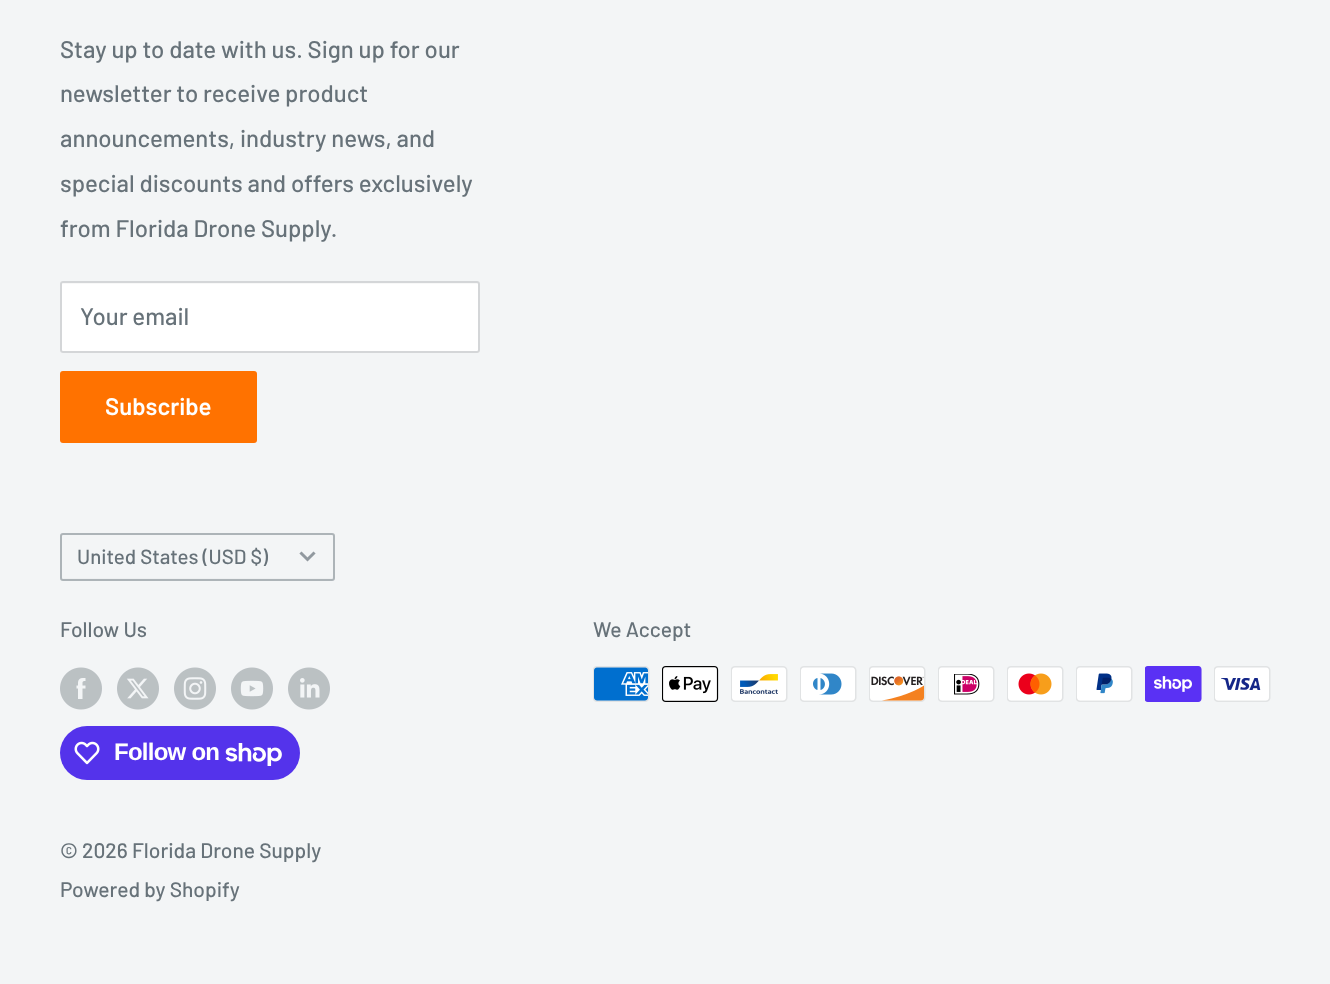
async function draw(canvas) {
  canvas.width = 1330
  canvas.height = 984
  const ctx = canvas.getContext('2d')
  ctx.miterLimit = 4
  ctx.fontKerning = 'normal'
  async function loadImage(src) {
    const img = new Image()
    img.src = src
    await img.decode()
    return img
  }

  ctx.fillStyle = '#f3f5f6'
  ctx.fillRect(0, 0, 1330, 984)
  ctx.font = '500 24px Barlow'
  ctx.fillStyle = '#677279'
  ctx.fillText('Stay up to date with us. Sign up for our', 60, 58)
  ctx.fillText('newsletter to receive product', 60, 102)
  ctx.fillText('announcements, industry news, and', 60, 147)
  ctx.fillText('special discounts and offers exclusively', 60, 192)
  ctx.fillText('from Florida Drone Supply.', 60, 237)
  ctx.fillStyle = '#fff'
  ctx.beginPath()
  ctx.roundRect(60, 281, 420, 72, 3)
  ctx.fill()
  ctx.fillStyle = '#f8f8f8'
  ctx.beginPath()
  ctx.moveTo(63, 284)
  ctx.lineTo(477, 284)
  ctx.bezierCurveTo(478, 284, 478, 284, 478, 285)
  ctx.lineTo(478, 351)
  ctx.lineTo(479, 350)
  ctx.lineTo(479, 284)
  ctx.bezierCurveTo(479, 283, 478, 282, 478, 282)
  ctx.lineTo(63, 282)
  ctx.lineTo(62, 285)
  ctx.bezierCurveTo(62, 284, 62, 284, 63, 284)
  ctx.closePath()
  ctx.fill()
  ctx.beginPath()
  ctx.roundRect(61, 282, 418, 70, 2)
  ctx.strokeStyle = '#d4d6d8'
  ctx.lineWidth = 2
  ctx.stroke()
  ctx.fillStyle = '#677279'
  ctx.fillText('Your email', 80, 325)
  ctx.fillStyle = '#ff7200'
  ctx.beginPath()
  ctx.roundRect(60, 371, 197, 72, 3)
  ctx.fill()
  ctx.font = '600 24px Barlow'
  ctx.fillStyle = '#fff'
  ctx.fillText('Subscribe', 105, 415)
  ctx.fillStyle = '#eef0f1'
  ctx.beginPath()
  ctx.moveTo(62, 576)
  ctx.lineTo(62, 578)
  ctx.bezierCurveTo(62, 578, 63, 579, 64, 579)
  ctx.lineTo(332, 579)
  ctx.bezierCurveTo(332, 579, 333, 578, 333, 578)
  ctx.lineTo(333, 576)
  ctx.lineTo(332, 578)
  ctx.lineTo(63, 578)
  ctx.bezierCurveTo(62, 578, 62, 577, 62, 576)
  ctx.closePath()
  ctx.fill()
  ctx.beginPath()
  ctx.roundRect(61, 534, 273, 46, 2)
  ctx.strokeStyle = '#adb4b8'
  ctx.stroke()
  ctx.font = '500 20.5px Barlow'
  ctx.fillStyle = '#677279'
  ctx.fillText('United States (USD $)', 77, 564)
  ctx.beginPath()
  ctx.moveTo(313.5, 553.5)
  ctx.lineTo(307.5, 559.5)
  ctx.lineTo(301.5, 553.5)
  ctx.strokeStyle = '#91999f'
  ctx.lineWidth = 3
  ctx.lineCap = 'square'
  ctx.stroke()
  ctx.font = '500 21px Barlow'
  ctx.fillText('Follow Us', 60, 637)
  ctx.drawImage(await loadImage('image0.png'), 60, 667, 42, 43)
  ctx.drawImage(await loadImage('image1.png'), 117, 667, 42, 43)
  ctx.drawImage(await loadImage('image2.png'), 174, 667, 42, 43)
  ctx.drawImage(await loadImage('image3.png'), 231, 667, 42, 43)
  ctx.drawImage(await loadImage('image4.png'), 288, 667, 42, 43)
  ctx.fillStyle = '#5433eb'
  ctx.beginPath()
  ctx.roundRect(60, 726, 240, 54, 27)
  ctx.fill()
  ctx.drawImage(await loadImage('image5.png'), 74, 741, 26, 24)
  ctx.letterSpacing = '-0.75px'
  ctx.font = 'bold 24px Liberation Sans'
  ctx.fillStyle = '#fff'
  ctx.fillText('Follow on', 114, 760)
  ctx.drawImage(await loadImage('image6.png'), 225, 743, 57, 23)
  ctx.letterSpacing = '0px'
  ctx.font = '500 21px Barlow'
  ctx.fillStyle = '#677279'
  ctx.fillText('We Accept', 593, 637)
  ctx.drawImage(await loadImage('image7.png'), 593, 666, 57, 36)
  ctx.drawImage(await loadImage('image8.png'), 662, 666, 57, 36)
  ctx.drawImage(await loadImage('image9.png'), 731, 666, 57, 36)
  ctx.drawImage(await loadImage('image10.png'), 800, 666, 57, 36)
  ctx.drawImage(await loadImage('image11.png'), 869, 666, 57, 36)
  ctx.drawImage(await loadImage('image12.png'), 938, 666, 57, 36)
  ctx.drawImage(await loadImage('image13.png'), 1007, 666, 57, 36)
  ctx.drawImage(await loadImage('image14.png'), 1076, 666, 57, 36)
  ctx.drawImage(await loadImage('image15.png'), 1145, 666, 57, 36)
  ctx.drawImage(await loadImage('image16.png'), 1214, 666, 57, 36)
  ctx.fillText('© 2026 Florida Drone Supply', 60, 858)
  ctx.fillText('Powered by Shopify', 60, 897)
}

draw(document.querySelector('canvas'))
